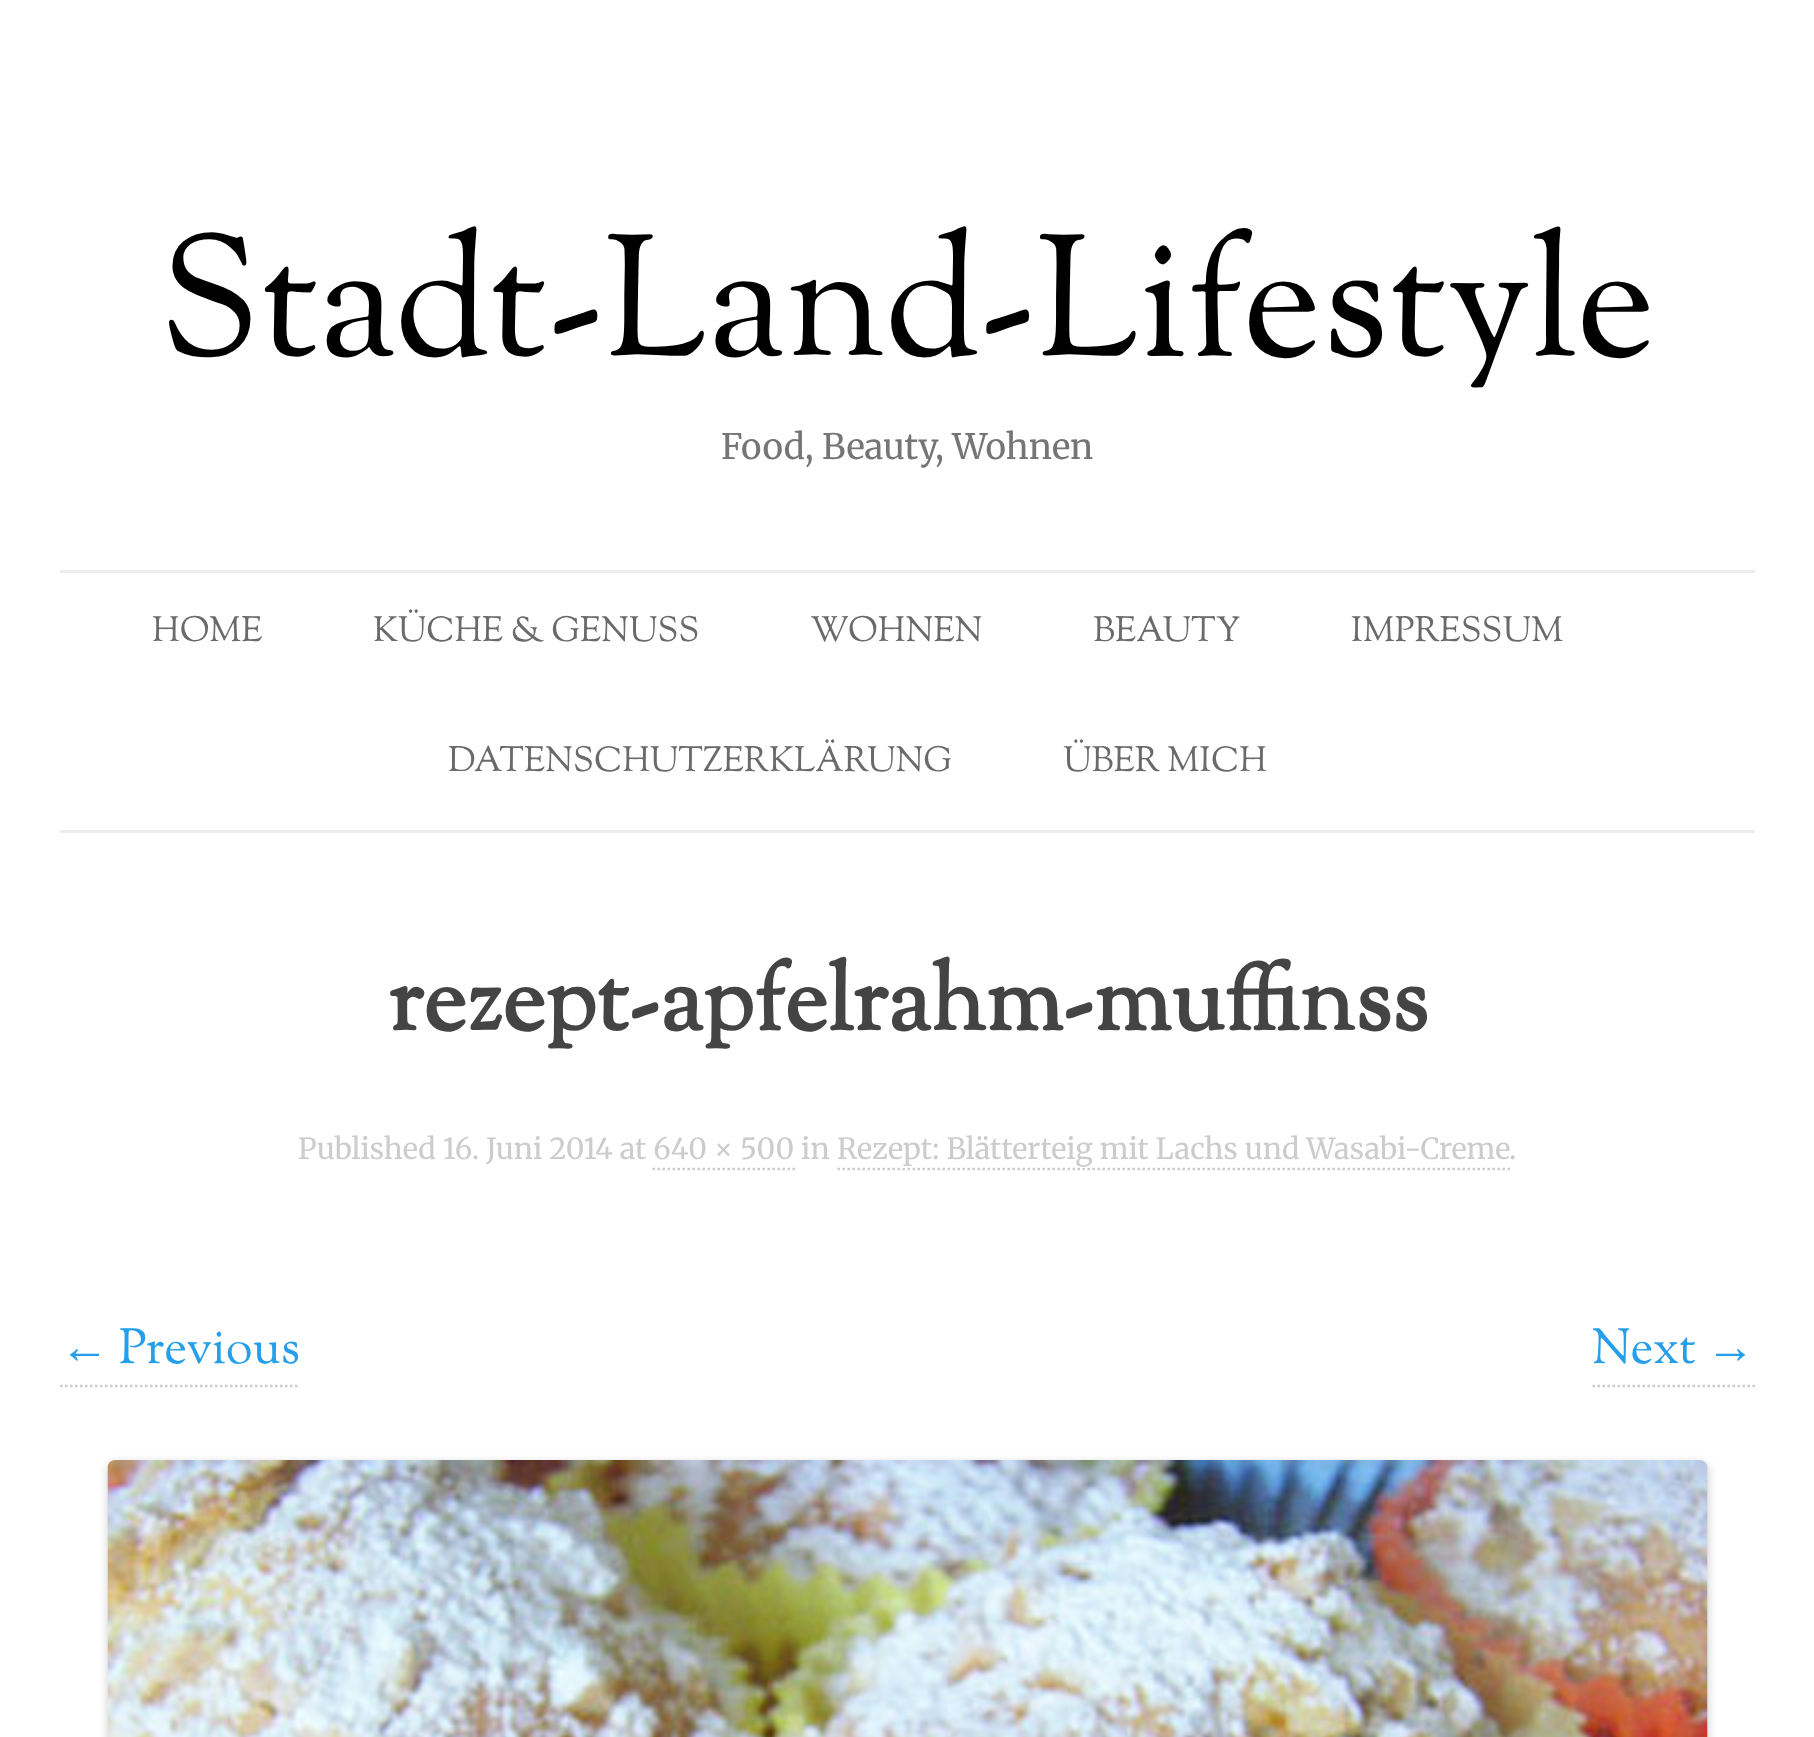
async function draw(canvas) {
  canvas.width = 1814
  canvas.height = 1737
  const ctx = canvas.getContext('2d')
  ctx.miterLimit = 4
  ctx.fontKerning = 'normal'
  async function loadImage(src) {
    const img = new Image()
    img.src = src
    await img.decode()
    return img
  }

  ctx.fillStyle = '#fff'
  ctx.fillRect(0, 0, 1814, 1737)
  ctx.font = '170px Sorts Mill Goudy'
  ctx.fillStyle = '#000'
  ctx.fillText('Stadt-Land-Lifestyle', 159, 355)
  ctx.font = '35px Merriweather'
  ctx.fillStyle = '#757575'
  ctx.fillText('Food, Beauty, Wohnen', 721, 459)
  ctx.fillStyle = '#ededed'
  ctx.fillRect(60, 570, 1695, 3)
  ctx.fillRect(60, 830, 1695, 3)
  ctx.font = '35px Sorts Mill Goudy'
  ctx.fillStyle = '#6a6a6a'
  ctx.fillText('HOME', 152, 641)
  ctx.fillText('KÜCHE & GENUSS', 373, 641)
  ctx.fillText('WOHNEN', 810, 641)
  ctx.fillText('BEAUTY', 1093, 641)
  ctx.fillText('IMPRESSUM', 1351, 641)
  ctx.fillText('DATENSCHUTZERKLÄRUNG', 448, 771)
  ctx.fillText('ÜBER MICH', 1063, 771)
  ctx.font = 'bold 93.5px Sorts Mill Goudy'
  ctx.fillStyle = '#444'
  ctx.fillText('rezept-apfelrahm-muffinss', 388, 1030)
  ctx.font = '29px Merriweather'
  ctx.fillStyle = '#ccc'
  ctx.fillText('Published 16. Juni 2014 at 640 × 500 in', 298, 1159)
  ctx.fillText('Rezept: Blätterteig mit Lachs und Wasabi-Creme', 837, 1159)
  ctx.beginPath()
  ctx.moveTo(837.5, 1169)
  ctx.lineTo(1510, 1169)
  ctx.strokeStyle = '#ccc'
  ctx.lineWidth = 2.5
  ctx.setLineDash([2.5, 2.5])
  ctx.stroke()
  ctx.fillText('.', 1509, 1159)
  ctx.beginPath()
  ctx.moveTo(652.5, 1169)
  ctx.lineTo(795, 1169)
  ctx.stroke()
  ctx.font = '49px Liberation Sans'
  ctx.fillStyle = '#269fea'
  ctx.fillText('←', 60, 1363)
  ctx.beginPath()
  ctx.moveTo(60, 1386)
  ctx.lineTo(300, 1386)
  ctx.stroke()
  ctx.font = '49px Sorts Mill Goudy'
  ctx.fillText('Previous', 119, 1363)
  ctx.fillText('Next', 1592, 1363)
  ctx.font = '49px Liberation Sans'
  ctx.fillText('→', 1706, 1363)
  ctx.beginPath()
  ctx.moveTo(1592.5, 1386)
  ctx.lineTo(1755, 1386)
  ctx.stroke()
  ctx.fillStyle = '#00000033'
  ctx.filter = 'blur(5px)'
  ctx.beginPath()
  ctx.roundRect(108, 1463, 1600, 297, 8)
  ctx.fill()
  ctx.filter = 'none'
  ctx.drawImage(await loadImage('image0.png'), 107, 1460, 1601, 277)
}

draw(document.querySelector('canvas'))
